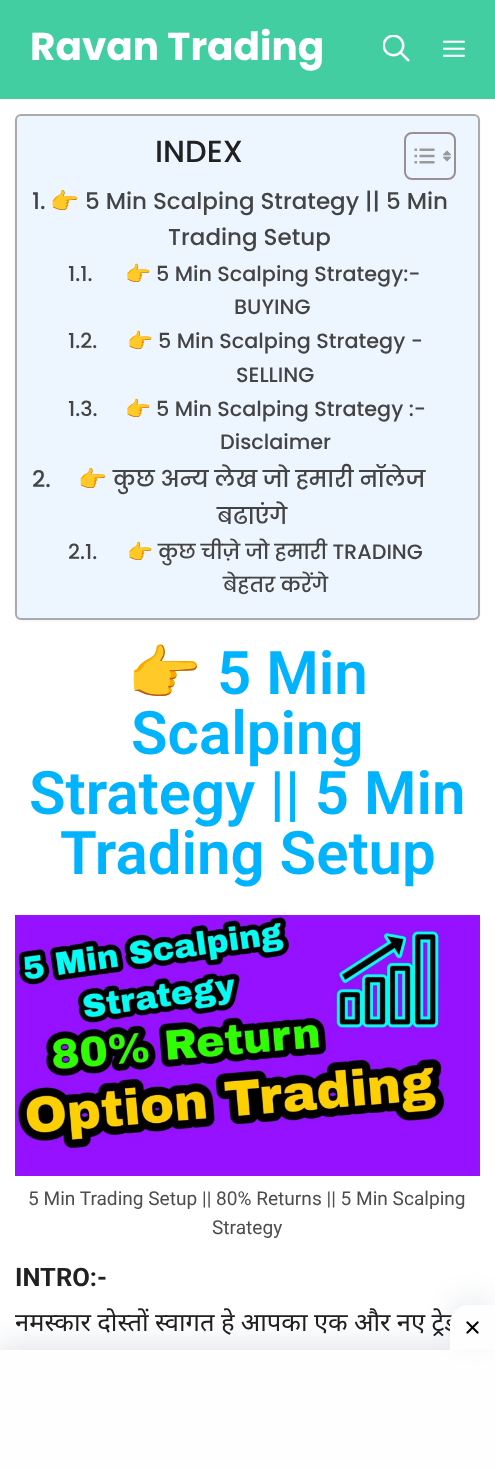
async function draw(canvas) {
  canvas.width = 495
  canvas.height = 1470
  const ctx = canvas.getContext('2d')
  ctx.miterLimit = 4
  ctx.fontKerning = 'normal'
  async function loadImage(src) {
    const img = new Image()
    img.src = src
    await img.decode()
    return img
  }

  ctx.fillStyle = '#fff'
  ctx.fillRect(0, 0, 495, 1470)
  ctx.fillStyle = '#43cea2'
  ctx.fillRect(0, 0, 495, 99)
  ctx.font = 'bold 39px Poppins'
  ctx.fillStyle = '#fff'
  ctx.fillText('Ravan Trading', 30, 60)
  ctx.drawImage(await loadImage('image0.png'), 383, 35, 27, 27)
  ctx.drawImage(await loadImage('image1.png'), 443, 40, 22, 17)
  ctx.fillStyle = '#0000000d'
  ctx.filter = 'blur(1px)'
  ctx.beginPath()
  ctx.roundRect(15, 116, 465, 505, 6)
  ctx.fill()
  ctx.filter = 'none'
  ctx.fillStyle = '#edf6ff'
  ctx.beginPath()
  ctx.roundRect(16, 115, 463, 504, 5)
  ctx.fill()
  ctx.strokeStyle = '#aaa'
  ctx.lineWidth = 2
  ctx.stroke()
  ctx.font = '500 30.5px Poppins'
  ctx.fillStyle = '#212121'
  ctx.fillText('INDEX', 155, 162)
  ctx.beginPath()
  ctx.roundRect(405, 133, 50, 46, 7)
  ctx.strokeStyle = '#999191'
  ctx.stroke()
  ctx.drawImage(await loadImage('image2.png'), 414, 148, 21, 16)
  ctx.drawImage(await loadImage('image3.png'), 443, 150, 8, 12)
  ctx.font = '500 23px Poppins'
  ctx.fillStyle = '#444'
  ctx.fillText('1.', 32, 209)
  ctx.font = '23px Noto Color Emoji'
  ctx.fillText('👉', 50, 209)
  ctx.font = '500 23px Poppins'
  ctx.fillText('5 Min Scalping Strategy ||', 85, 209)
  ctx.fillText('5 Min', 386, 209)
  ctx.fillText('Trading Setup', 168, 245)
  ctx.font = '500 20.75px Poppins'
  ctx.fillText('1.1.', 68, 281)
  ctx.font = '20.75px Noto Color Emoji'
  ctx.fillText('👉', 125, 281)
  ctx.font = '500 20.75px Poppins'
  ctx.fillText('5 Min Scalping Strategy:-', 156, 281)
  ctx.fillText('BUYING', 234, 314)
  ctx.fillText('1.2.', 68, 348)
  ctx.font = '20.75px Noto Color Emoji'
  ctx.fillText('👉', 127, 348)
  ctx.font = '500 20.75px Poppins'
  ctx.fillText('5 Min Scalping Strategy -', 158, 348)
  ctx.fillText('SELLING', 236, 382)
  ctx.fillText('1.3.', 68, 416)
  ctx.font = '20.75px Noto Color Emoji'
  ctx.fillText('👉', 125, 416)
  ctx.font = '500 20.75px Poppins'
  ctx.fillText('5 Min Scalping Strategy :-', 156, 416)
  ctx.fillText('Disclaimer', 220, 449)
  ctx.font = '500 23px Poppins'
  ctx.fillText('2.', 32, 487)
  ctx.font = '23px Noto Color Emoji'
  ctx.fillText('👉', 78, 487)
  ctx.font = '500 23px Poppins'
  ctx.fillText('कुछ अन्य लेख जो हमारी नॉलेज', 113, 487)
  ctx.fillText('बढाएंगे', 217, 524)
  ctx.font = '500 20.75px Poppins'
  ctx.fillText('2.1.', 68, 559)
  ctx.font = '20.75px Noto Color Emoji'
  ctx.fillText('👉', 127, 559)
  ctx.font = '500 20.75px Poppins'
  ctx.fillText('कुछ चीज़े जो हमारी TRADING', 158, 559)
  ctx.fillText('बेहतर करेंगे', 223, 592)
  ctx.font = 'bold 60px Noto Color Emoji'
  ctx.fillStyle = '#00b3ff'
  ctx.fillText('👉', 127, 694)
  ctx.font = '600 60px Roboto'
  ctx.fillText('5 Min', 217, 694)
  ctx.fillText('Scalping', 131, 754)
  ctx.fillText('Strategy || 5 Min', 29, 814)
  ctx.fillText('Trading Setup', 60, 874)
  ctx.drawImage(await loadImage('image4.png'), 15, 915, 465, 261)
  ctx.font = '19.1px Roboto'
  ctx.fillStyle = '#4d4d4d'
  ctx.fillText('5 Min Trading Setup || 80% Returns || 5 Min Scalping', 28, 1205)
  ctx.fillText('Strategy', 212, 1234)
  ctx.font = 'bold 25.5px Roboto'
  ctx.fillStyle = '#212121'
  ctx.fillText('INTRO:-', 15, 1286)
  ctx.wordSpacing = '-0.25px'
  ctx.font = '25.5px Noto Sans'
  ctx.fillText('नमस्कार दोस्तों स्वागत हे आपका एक और नए ट्रेड', 15, 1331)
  ctx.fillStyle = '#09204c1a'
  ctx.filter = 'blur(13.5px)'
  ctx.beginPath()
  ctx.rect(0, 1341, 495, 120)
  ctx.fill()
  ctx.filter = 'none'
  ctx.fillStyle = '#fefefe'
  ctx.fillRect(0, 1350, 495, 120)
  ctx.fillStyle = '#09204c14'
  ctx.filter = 'blur(13.5px)'
  ctx.beginPath()
  ctx.roundRect(450, 1296, 45, 45, 18)
  ctx.fill()
  ctx.filter = 'none'
  ctx.fillStyle = '#fefefe'
  ctx.beginPath()
  ctx.roundRect(450, 1305, 45, 45, [18, 0, 0, 0])
  ctx.fill()
  ctx.drawImage(await loadImage('image5.png'), 466, 1321, 13, 13)
}

draw(document.querySelector('canvas'))
